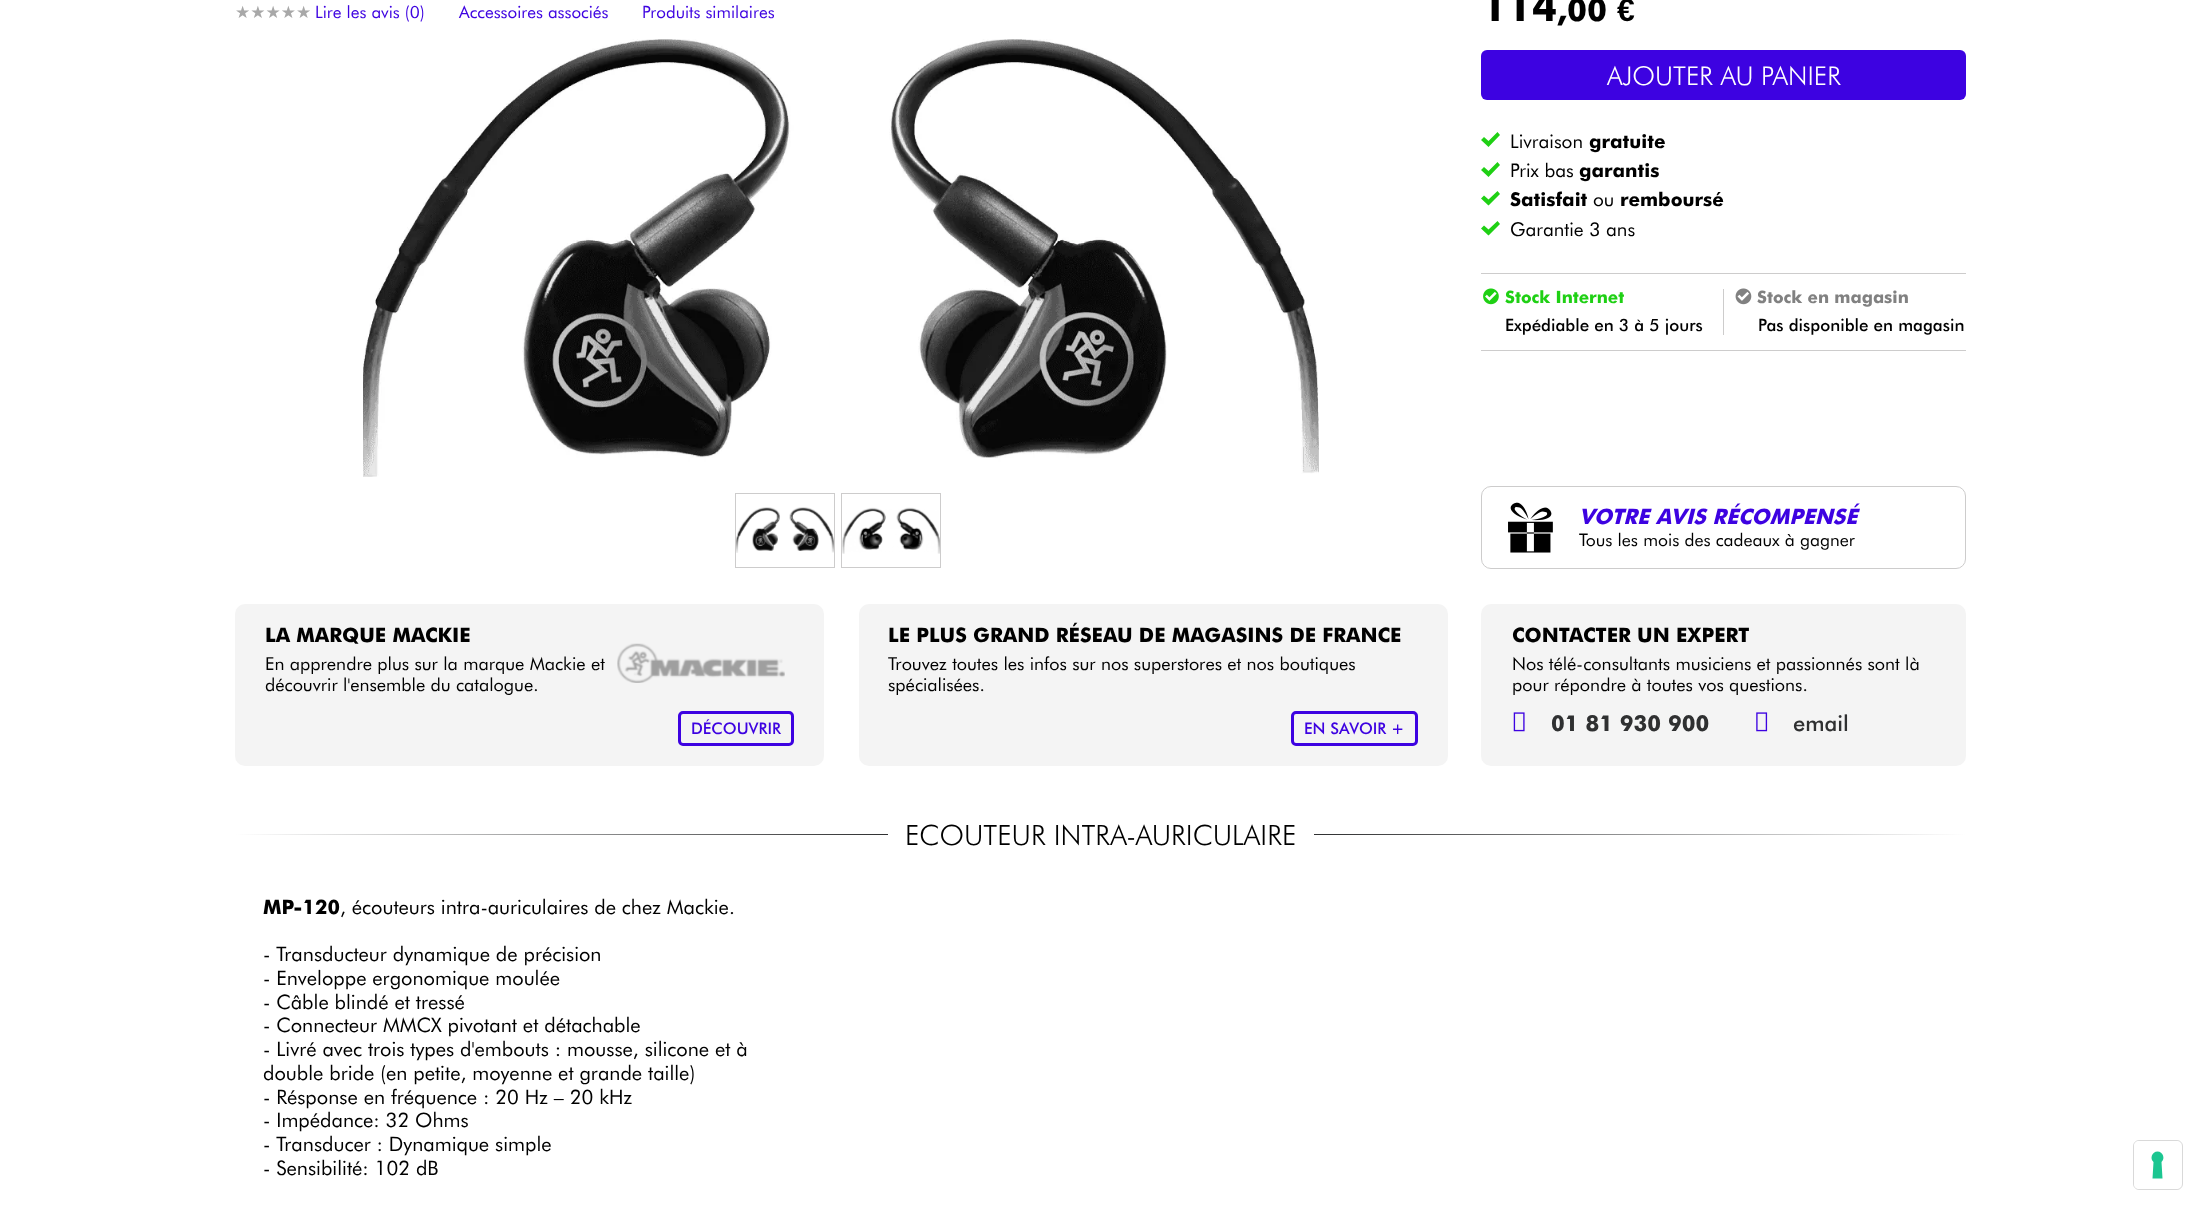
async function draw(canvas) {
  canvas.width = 2201
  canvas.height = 1208
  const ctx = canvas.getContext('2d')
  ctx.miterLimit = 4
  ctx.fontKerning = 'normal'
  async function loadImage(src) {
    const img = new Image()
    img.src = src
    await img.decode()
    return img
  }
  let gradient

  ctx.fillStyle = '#fff'
  ctx.fillRect(0, 0, 2201, 1208)
  ctx.font = '17px DejaVu Sans'
  ctx.fillStyle = '#a8a8a8'
  ctx.fillText('★★★★★', 235, 18)
  ctx.font = '17px Futura'
  ctx.fillStyle = '#3d02e1'
  ctx.fillText('Lire les avis (0)', 315, 18)
  ctx.fillText('Accessoires associés', 459, 18)
  ctx.fillText('Produits similaires', 642, 18)
  ctx.drawImage(await loadImage('image0.png'), 363, 39, 956, 438)
  ctx.drawImage(await loadImage('image1.png'), 736, 507, 98, 46)
  ctx.strokeStyle = '#cdcccc'
  ctx.strokeRect(735.5, 493.5, 99, 74)
  ctx.drawImage(await loadImage('image2.png'), 842, 507, 98, 47)
  ctx.strokeRect(841.5, 493.5, 99, 74)
  ctx.font = 'bold 40px Futura'
  ctx.fillStyle = '#000'
  ctx.fillText('114', 1482, 21)
  ctx.font = 'bold 32px Futura'
  ctx.fillText(',00', 1557, 21)
  ctx.font = 'bold 32px Liberation Sans'
  ctx.fillText('€', 1617, 21)
  ctx.fillStyle = '#3d02e1'
  ctx.beginPath()
  ctx.roundRect(1481, 50, 485, 50, 6)
  ctx.fill()
  ctx.font = '300 26px Futura'
  ctx.fillStyle = '#fff'
  ctx.fillText('AJOUTER AU PANIER', 1607, 85)
  ctx.fillStyle = '#1fd014'
  ctx.beginPath()
  ctx.moveTo(1497.5, 132)
  ctx.lineTo(1488.5, 141)
  ctx.lineTo(1484, 137)
  ctx.lineTo(1481, 140)
  ctx.lineTo(1488.5, 147)
  ctx.lineTo(1500, 135)
  ctx.closePath()
  ctx.fill()
  ctx.font = '19px Futura'
  ctx.fillStyle = '#000'
  ctx.fillText('Livraison', 1510, 148)
  ctx.font = 'bold 19px Futura'
  ctx.fillText('gratuite', 1589, 148)
  ctx.fillStyle = '#1fd014'
  ctx.beginPath()
  ctx.moveTo(1497.5, 162)
  ctx.lineTo(1488.5, 171)
  ctx.lineTo(1484, 167)
  ctx.lineTo(1481, 170)
  ctx.lineTo(1488.5, 177)
  ctx.lineTo(1500, 165)
  ctx.closePath()
  ctx.fill()
  ctx.font = '19px Futura'
  ctx.fillStyle = '#000'
  ctx.fillText('Prix bas', 1510, 177)
  ctx.font = 'bold 19px Futura'
  ctx.fillText('garantis', 1579, 177)
  ctx.fillStyle = '#1fd014'
  ctx.beginPath()
  ctx.moveTo(1497.5, 191)
  ctx.lineTo(1488.5, 199.5)
  ctx.lineTo(1484, 195.5)
  ctx.lineTo(1481, 198.5)
  ctx.lineTo(1488.5, 205.5)
  ctx.lineTo(1500, 194)
  ctx.closePath()
  ctx.fill()
  ctx.fillStyle = '#000'
  ctx.fillText('Satisfait', 1510, 206)
  ctx.font = '19px Futura'
  ctx.fillText('ou', 1593, 206)
  ctx.font = 'bold 19px Futura'
  ctx.fillText('remboursé', 1620, 206)
  ctx.fillStyle = '#1fd014'
  ctx.beginPath()
  ctx.moveTo(1497.5, 221)
  ctx.lineTo(1488.5, 229.5)
  ctx.lineTo(1484, 225.5)
  ctx.lineTo(1481, 228.5)
  ctx.lineTo(1488.5, 235.5)
  ctx.lineTo(1500, 224)
  ctx.closePath()
  ctx.fill()
  ctx.font = '19px Futura'
  ctx.fillStyle = '#000'
  ctx.fillText('Garantie 3 ans', 1510, 236)
  ctx.fillStyle = '#cdcccc'
  ctx.fillRect(1481, 273, 485, 1)
  ctx.fillRect(1481, 350, 485, 1)
  ctx.fillRect(1723, 289, 1, 46)
  ctx.drawImage(await loadImage('image3.png'), 1483, 288, 16, 17)
  ctx.font = 'bold 17px Futura'
  ctx.fillStyle = '#1fd014'
  ctx.fillText('Stock Internet', 1505, 303)
  ctx.font = '500 17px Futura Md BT'
  ctx.fillStyle = '#000'
  ctx.fillText('Expédiable en 3 à 5 jours', 1505, 331)
  ctx.drawImage(await loadImage('image4.png'), 1735, 288, 17, 17)
  ctx.font = 'bold 17px Futura'
  ctx.fillStyle = '#818181'
  ctx.fillText('Stock en magasin', 1757, 303)
  ctx.font = '500 17px Futura Md BT'
  ctx.fillStyle = '#000'
  ctx.fillText('Pas disponible en magasin', 1758, 331)
  ctx.beginPath()
  ctx.roundRect(1481.5, 486.5, 484, 82, 9.5)
  ctx.stroke()
  ctx.drawImage(await loadImage('image5.png'), 1508, 502, 45, 51)
  ctx.font = 'italic bold 21.25px Futura'
  ctx.fillStyle = '#3d02e1'
  ctx.fillText('VOTRE AVIS RÉCOMPENSÉ', 1579, 524)
  ctx.font = '17.5px Futura'
  ctx.fillStyle = '#000'
  ctx.fillText('Tous les mois des cadeaux à gagner', 1579, 546)
  ctx.fillStyle = '#f4f4f4'
  ctx.beginPath()
  ctx.roundRect(235, 604, 589, 162, 10)
  ctx.fill()
  ctx.font = 'bold 20px Futura'
  ctx.fillStyle = '#000'
  ctx.fillText('LA MARQUE MACKIE', 265, 642)
  ctx.font = '18px Futura'
  ctx.fillText('En apprendre plus sur la marque Mackie et', 265, 670)
  ctx.fillText('découvrir l\'ensemble du catalogue.', 265, 691)
  ctx.drawImage(await loadImage('image6.png'), 617, 643, 168, 40)
  ctx.beginPath()
  ctx.roundRect(679.5, 712.5, 113, 32, 3.5)
  ctx.strokeStyle = '#3d02e1'
  ctx.lineWidth = 3
  ctx.stroke()
  ctx.font = '500 16px Futura Md BT'
  ctx.fillStyle = '#3d02e1'
  ctx.fillText('DÉCOUVRIR', 691, 734)
  ctx.fillStyle = '#f4f4f4'
  ctx.beginPath()
  ctx.roundRect(859, 604, 589, 162, 10)
  ctx.fill()
  ctx.font = 'bold 20px Futura'
  ctx.fillStyle = '#000'
  ctx.fillText('LE PLUS GRAND RÉSEAU DE MAGASINS DE FRANCE', 888, 642)
  ctx.font = '18px Futura'
  ctx.fillText('Trouvez toutes les infos sur nos superstores et nos boutiques', 888, 670)
  ctx.fillText('spécialisées.', 888, 691)
  ctx.beginPath()
  ctx.roundRect(1292.5, 712.5, 124, 32, 3.5)
  ctx.stroke()
  ctx.font = '500 16px Futura Md BT'
  ctx.fillStyle = '#3d02e1'
  ctx.fillText('EN SAVOIR +', 1304, 734)
  ctx.fillStyle = '#f4f4f4'
  ctx.beginPath()
  ctx.roundRect(1481, 604, 485, 162, 10)
  ctx.fill()
  ctx.font = 'bold 20px Futura'
  ctx.fillStyle = '#000'
  ctx.fillText('CONTACTER UN EXPERT', 1512, 642)
  ctx.font = '18px Futura'
  ctx.fillText('Nos télé-consultants musiciens et passionnés sont là', 1512, 670)
  ctx.fillText('pour répondre à toutes vos questions.', 1512, 691)
  ctx.drawImage(await loadImage('image7.png'), 1513, 712, 12, 20)
  ctx.font = 'bold 22px Futura'
  ctx.fillStyle = '#2f3031'
  ctx.fillText('01 81 930 900', 1551, 731)
  ctx.drawImage(await loadImage('image8.png'), 1756, 712, 12, 20)
  ctx.font = '500 22px Futura Md BT'
  ctx.fillText('email', 1793, 731)
  gradient = ctx.createLinearGradient(235, 834, 888, 834)
  gradient.addColorStop(0, '#fff')
  gradient.addColorStop(1, '#2f3031')
  ctx.fillStyle = gradient
  ctx.fillRect(235, 834, 653, 1)
  ctx.font = '300 28px Futura'
  ctx.fillStyle = '#000'
  ctx.fillText('ECOUTEUR INTRA-AURICULAIRE', 905, 845)
  gradient = ctx.createLinearGradient(1966, 834, 1314, 834)
  gradient.addColorStop(0, '#fff')
  gradient.addColorStop(1, '#2f3031')
  ctx.fillStyle = gradient
  ctx.fillRect(1314, 834, 652, 1)
  ctx.font = 'bold 20px Futura'
  ctx.fillStyle = '#000'
  ctx.fillText('MP-120', 263, 914)
  ctx.font = '20px Futura'
  ctx.fillText(', écouteurs intra-auriculaires de chez Mackie.', 340, 914)
  ctx.fillText('- Transducteur dynamique de précision', 263, 961)
  ctx.fillText('- Enveloppe ergonomique moulée', 263, 985)
  ctx.fillText('- Câble blindé et tressé', 263, 1009)
  ctx.fillText('- Connecteur MMCX pivotant et détachable', 263, 1032)
  ctx.fillText('- Livré avec trois types d\'embouts : mousse, silicone et à', 263, 1056)
  ctx.fillText('double bride (en petite, moyenne et grande taille)', 263, 1080)
  ctx.fillText('- Résponse en fréquence : 20 Hz – 20 kHz', 263, 1104)
  ctx.fillText('- Impédance: 32 Ohms', 263, 1127)
  ctx.fillText('- Transducer : Dynamique simple', 263, 1151)
  ctx.fillText('- Sensibilité: 102 dB', 263, 1175)
  ctx.beginPath()
  ctx.roundRect(2133.5, 1140.5, 49, 49, 5.5)
  ctx.strokeStyle = '#d9d9d9'
  ctx.lineWidth = 1
  ctx.stroke()
  ctx.fillStyle = '#fff'
  ctx.beginPath()
  ctx.roundRect(2134, 1141, 47, 48, 5)
  ctx.fill()
  ctx.fillStyle = '#1cc691'
  ctx.beginPath()
  ctx.moveTo(2157.5, 1151.5)
  ctx.bezierCurveTo(2163, 1151.5, 2165.5, 1158.5, 2161.5, 1162)
  ctx.lineTo(2162.5, 1178.5)
  ctx.lineTo(2152.5, 1178.5)
  ctx.lineTo(2153.5, 1162)
  ctx.bezierCurveTo(2149.5, 1158.5, 2152, 1151.5, 2157.5, 1151.5)
  ctx.closePath()
  ctx.fill('evenodd')
}

draw(document.querySelector('canvas'))
